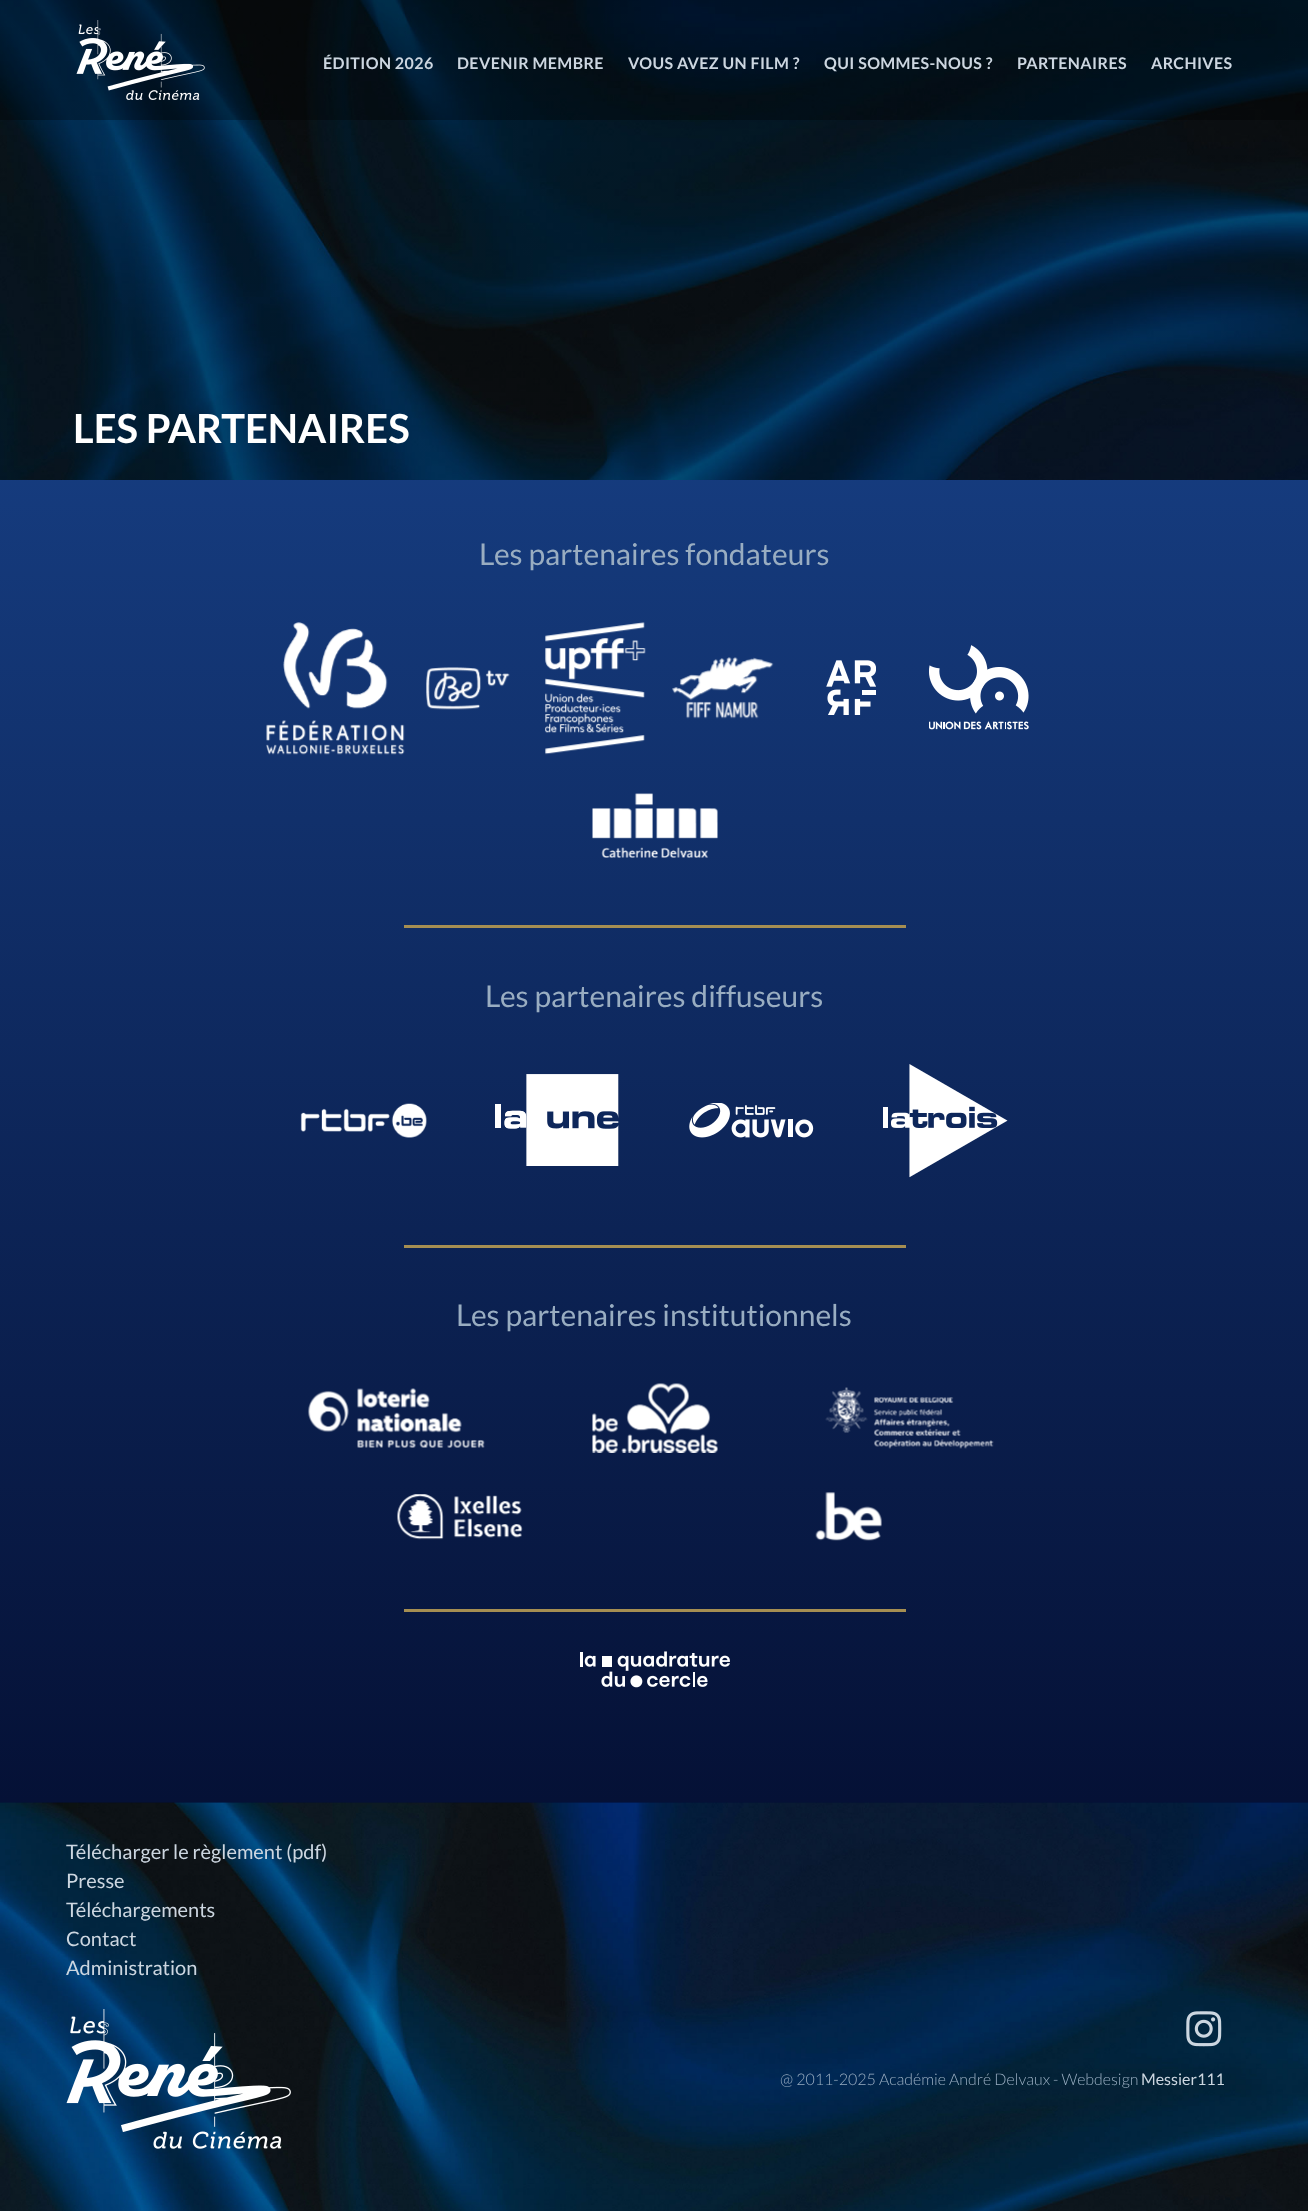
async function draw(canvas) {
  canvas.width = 1308
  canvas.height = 2211
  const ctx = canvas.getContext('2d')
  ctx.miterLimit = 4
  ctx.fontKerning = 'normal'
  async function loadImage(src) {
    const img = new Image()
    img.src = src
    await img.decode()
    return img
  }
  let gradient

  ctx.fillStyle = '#fff'
  ctx.fillRect(0, 0, 1308, 2211)
  gradient = ctx.createLinearGradient(654, 2211, 654, 0)
  gradient.addColorStop(0, '#000420')
  gradient.addColorStop(1, '#1b4a97')
  ctx.fillStyle = gradient
  ctx.fillRect(0, 480, 1308, 1323)
  ctx.drawImage(await loadImage('image1.png'), 0, 0, 1308, 480)
  ctx.fillStyle = '#0000004d'
  ctx.fillRect(0, 0, 1308, 120)
  ctx.drawImage(await loadImage('image0.png'), 76, 20, 129, 80)
  ctx.letterSpacing = '0.4px'
  ctx.font = 'bold 16px Lato'
  ctx.fillStyle = '#ccd6e0'
  ctx.fillText('ÉDITION 2026', 323, 69)
  ctx.fillText('DEVENIR MEMBRE', 457, 69)
  ctx.fillText('VOUS AVEZ UN FILM ?', 628, 69)
  ctx.fillText('QUI SOMMES-NOUS ?', 824, 69)
  ctx.fillText('PARTENAIRES', 1017, 69)
  ctx.fillText('ARCHIVES', 1151, 69)
  ctx.letterSpacing = '0px'
  ctx.font = 'bold 40px Lato'
  ctx.fillStyle = '#fff'
  ctx.fillText('LES PARTENAIRES', 73, 443)
  ctx.font = '30px Lato'
  ctx.fillStyle = '#99adc1'
  ctx.fillText('Les partenaires fondateurs', 479, 565)
  ctx.drawImage(await loadImage('image2.png'), 266, 622, 139, 133)
  ctx.drawImage(await loadImage('image3.png'), 426, 667, 84, 43)
  ctx.drawImage(await loadImage('image4.png'), 545, 622, 101, 133)
  ctx.drawImage(await loadImage('image5.png'), 672, 657, 102, 62)
  ctx.drawImage(await loadImage('image6.png'), 826, 660, 50, 55)
  ctx.drawImage(await loadImage('image7.png'), 929, 645, 100, 85)
  ctx.drawImage(await loadImage('image8.png'), 592, 793, 126, 65)
  ctx.fillStyle = '#a58e52'
  ctx.fillRect(404, 925, 502, 3)
  ctx.fillStyle = '#99adc1'
  ctx.fillText('Les partenaires diffuseurs', 485, 1007)
  ctx.drawImage(await loadImage('image9.png'), 300, 1103, 127, 35)
  ctx.drawImage(await loadImage('image10.png'), 495, 1074, 124, 92)
  ctx.drawImage(await loadImage('image11.png'), 689, 1103, 125, 35)
  ctx.drawImage(await loadImage('image12.png'), 883, 1064, 125, 114)
  ctx.fillStyle = '#a58e52'
  ctx.fillRect(404, 1245, 502, 3)
  ctx.fillStyle = '#99adc1'
  ctx.fillText('Les partenaires institutionnels', 456, 1326)
  ctx.drawImage(await loadImage('image13.png'), 308, 1388, 177, 60)
  ctx.drawImage(await loadImage('image14.png'), 592, 1383, 126, 70)
  ctx.drawImage(await loadImage('image15.png'), 825, 1387, 169, 62)
  ctx.drawImage(await loadImage('image16.png'), 397, 1494, 126, 46)
  ctx.drawImage(await loadImage('image17.png'), 815, 1492, 67, 49)
  ctx.fillStyle = '#a58e52'
  ctx.fillRect(404, 1609, 502, 3)
  ctx.drawImage(await loadImage('image18.png'), 580, 1651, 150, 37)
  ctx.drawImage(await loadImage('image19.png'), 0, 1802, 1308, 409)
  ctx.font = '20px Lato'
  ctx.fillStyle = '#ccd6e0'
  ctx.fillText('Télécharger le règlement (pdf)', 66, 1859)
  ctx.fillText('Presse', 66, 1888)
  ctx.fillText('Téléchargements', 66, 1917)
  ctx.fillText('Contact', 66, 1946)
  ctx.fillText('Administration', 66, 1975)
  ctx.drawImage(await loadImage('image20.png'), 66, 2009, 225, 140)
  ctx.drawImage(await loadImage('image21.png'), 1186, 2011, 36, 36)
  ctx.font = '300 16px Lato'
  ctx.fillStyle = '#99adc1'
  ctx.fillText('@ 2011-2025 Académie André Delvaux - Webdesign', 780, 2085)
  ctx.font = '16px Lato'
  ctx.fillStyle = '#ccd6e0'
  ctx.fillText('Messier111', 1141, 2085)
}

draw(document.querySelector('canvas'))
